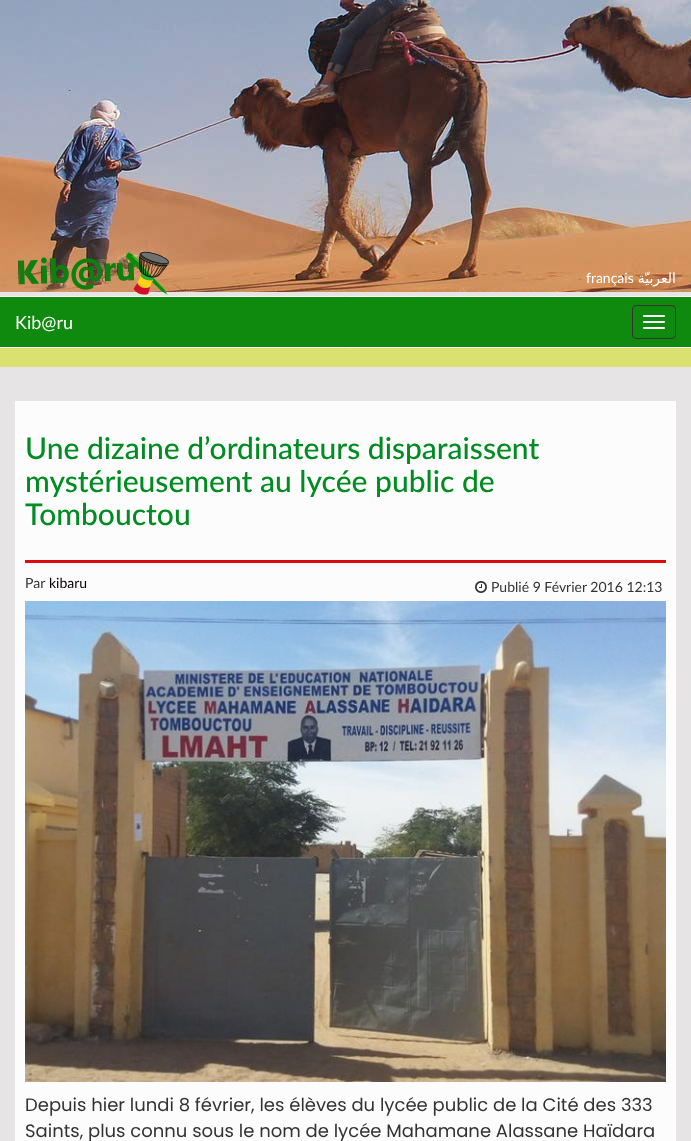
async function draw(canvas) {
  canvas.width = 691
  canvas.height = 1141
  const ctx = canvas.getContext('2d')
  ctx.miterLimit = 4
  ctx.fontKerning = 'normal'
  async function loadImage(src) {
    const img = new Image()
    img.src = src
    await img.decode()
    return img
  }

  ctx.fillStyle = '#e6e4e4'
  ctx.fillRect(0, 0, 691, 1141)
  ctx.drawImage(await loadImage('image0.png'), 0, 0, 691, 292)
  ctx.drawImage(await loadImage('image1.png'), 18, 251, 151, 44)
  ctx.font = '14px Lato'
  ctx.fillStyle = '#fff'
  ctx.fillText('français', 586, 283)
  ctx.direction = 'rtl'
  ctx.font = '14px DejaVu Sans'
  ctx.fillText('العربيّة', 676, 283)
  ctx.fillStyle = '#0f8a0f'
  ctx.beginPath()
  ctx.rect(-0.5, 296.5, 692, 51)
  ctx.fill()
  ctx.strokeStyle = '#fff'
  ctx.stroke()
  ctx.direction = 'ltr'
  ctx.font = '18px Lato'
  ctx.fillStyle = '#fff'
  ctx.fillText('Kib@ru', 15, 329)
  ctx.beginPath()
  ctx.roundRect(632.5, 305.5, 43, 33, 3.5)
  ctx.strokeStyle = '#333'
  ctx.stroke()
  ctx.beginPath()
  ctx.roundRect(643, 315, 22, 2, 1)
  ctx.fill()
  ctx.beginPath()
  ctx.roundRect(643, 321, 22, 2, 1)
  ctx.fill()
  ctx.beginPath()
  ctx.roundRect(643, 327, 22, 2, 1)
  ctx.fill()
  ctx.fillStyle = '#dae170'
  ctx.fillRect(0, 348, 691, 19)
  ctx.fillStyle = '#fdfcfc'
  ctx.fillRect(15, 401, 661, 740)
  ctx.fillStyle = '#df0a0a'
  ctx.fillRect(25, 560, 641, 3)
  ctx.font = '500 30px Lato'
  ctx.fillStyle = '#008c23'
  ctx.fillText('Une dizaine d’ordinateurs disparaissent', 25, 459)
  ctx.fillText('mystérieusement au lycée public de', 25, 492)
  ctx.fillText('Tombouctou', 25, 525)
  ctx.font = '14px Lato'
  ctx.fillStyle = '#333'
  ctx.fillText('Par', 25, 588)
  ctx.fillStyle = '#060000'
  ctx.fillText('kibaru', 49, 588)
  ctx.drawImage(await loadImage('image2.png'), 475, 581, 12, 12)
  ctx.fillStyle = '#333'
  ctx.fillText('Publié 9 Février 2016 12:13', 491, 592)
  ctx.drawImage(await loadImage('image3.png'), 25, 601, 641, 481)
  ctx.font = '18px Poppins'
  ctx.fillText('Depuis hier lundi 8 février, les élèves du lycée public de la Cité des 333', 25, 1111)
  ctx.fillText('Saints, plus connu sous le nom de lycée Mahamane Alassane Haïdara', 25, 1137)
}

draw(document.querySelector('canvas'))
